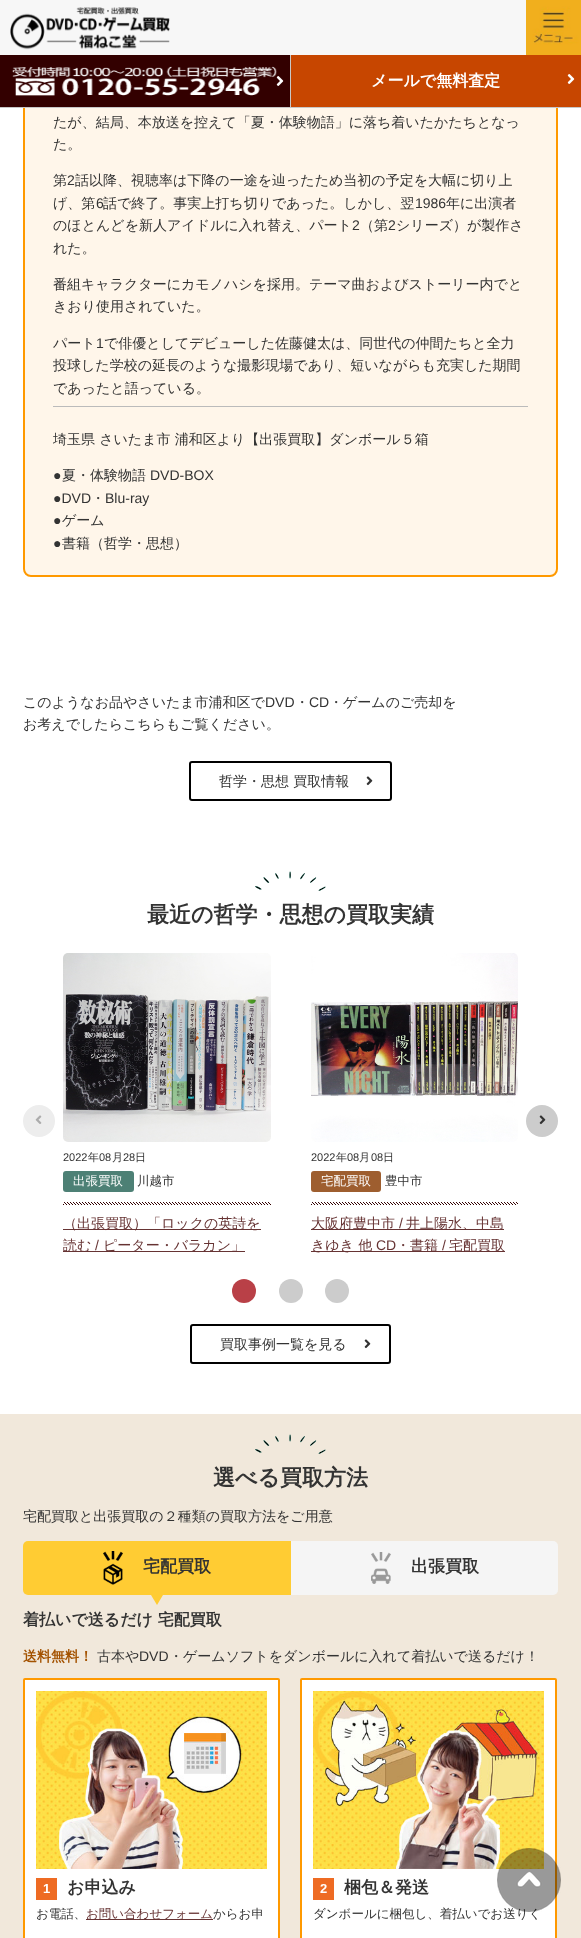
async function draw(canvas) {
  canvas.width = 581
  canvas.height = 1938
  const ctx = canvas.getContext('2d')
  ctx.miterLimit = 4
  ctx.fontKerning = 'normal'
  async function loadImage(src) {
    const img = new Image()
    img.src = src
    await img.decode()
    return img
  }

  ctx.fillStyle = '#fff'
  ctx.fillRect(0, 0, 581, 1938)
  ctx.fillStyle = '#fff6ea'
  ctx.beginPath()
  ctx.roundRect(24, -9, 533, 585, 7)
  ctx.fill()
  ctx.strokeStyle = '#f90'
  ctx.lineWidth = 2
  ctx.stroke()
  ctx.fillStyle = '#f7f7f7'
  ctx.fillRect(0, 0, 526, 55)
  ctx.drawImage(await loadImage('image0.png'), 10, 7, 160, 43)
  ctx.drawImage(await loadImage('image1.png'), 526, 0, 55, 55)
  ctx.fillStyle = '#300'
  ctx.fillRect(0, 55, 290, 52)
  ctx.fillStyle = '#c7c7c7'
  ctx.fillRect(0, 107, 581, 1)
  ctx.drawImage(await loadImage('image2.png'), 12, 66, 265, 30)
  ctx.drawImage(await loadImage('image3.png'), 276, 76, 8, 10)
  ctx.fillStyle = '#c74600'
  ctx.fillRect(291, 55, 290, 52)
  ctx.fillStyle = '#c7c7c7'
  ctx.fillRect(290, 55, 1, 53)
  ctx.font = 'bold 16px WenQuanYi Zen Hei'
  ctx.fillStyle = '#fff'
  ctx.fillText('メールで無料査定', 371, 86)
  ctx.drawImage(await loadImage('image4.png'), 567, 74, 8, 10)
  ctx.font = '500 14px WenQuanYi Zen Hei'
  ctx.fillStyle = '#333'
  ctx.fillText('たが、結局、本放送を控えて「夏・体験物語」に落ち着いたかたちとなっ', 53, 127)
  ctx.fillText('た。', 53, 149)
  ctx.fillText('第', 53, 185)
  ctx.font = '14px Liberation Sans'
  ctx.fillText('2', 67, 185)
  ctx.font = '500 14px WenQuanYi Zen Hei'
  ctx.fillText('話以降、視聴率は下降の一途を辿ったため当初の予定を大幅に切り上', 75, 185)
  ctx.fillText('げ、第', 53, 208)
  ctx.font = '14px Liberation Sans'
  ctx.fillText('6', 96, 208)
  ctx.font = '500 14px WenQuanYi Zen Hei'
  ctx.fillText('話で終了。事実上打ち切りであった。しかし、翌', 103, 208)
  ctx.font = '14px Liberation Sans'
  ctx.fillText('1986', 415, 208)
  ctx.font = '500 14px WenQuanYi Zen Hei'
  ctx.fillText('年に出演者', 446, 208)
  ctx.fillText('のほとんどを新人アイドルに入れ替え、パート', 53, 230)
  ctx.font = '14px Liberation Sans'
  ctx.fillText('2', 352, 230)
  ctx.font = '500 14px WenQuanYi Zen Hei'
  ctx.fillText('（第', 360, 230)
  ctx.font = '14px Liberation Sans'
  ctx.fillText('2', 388, 230)
  ctx.font = '500 14px WenQuanYi Zen Hei'
  ctx.fillText('シリーズ）が製作さ', 396, 230)
  ctx.fillText('れた。', 53, 253)
  ctx.fillText('番組キャラクターにカモノハシを採用。テーマ曲およびストーリー内でと', 53, 289)
  ctx.fillText('きおり使用されていた。', 53, 311)
  ctx.fillText('パート', 53, 348)
  ctx.font = '14px Liberation Sans'
  ctx.fillText('1', 96, 348)
  ctx.font = '500 14px WenQuanYi Zen Hei'
  ctx.fillText('で俳優としてデビューした佐藤健太は、同世代の仲間たちと全力', 104, 348)
  ctx.fillText('投球した学校の延長のような撮影現場であり、短いながらも充実した期間', 53, 370)
  ctx.fillText('であったと語っている。', 53, 393)
  ctx.fillStyle = '#bbb'
  ctx.fillRect(53, 406, 475, 1)
  ctx.fillStyle = '#333'
  ctx.fillText('埼玉県 さいたま市 浦和区より【出張買取】ダンボール５箱', 53, 444)
  ctx.font = '14px Liberation Sans'
  ctx.fillText('●', 53, 480)
  ctx.font = '500 14px WenQuanYi Zen Hei'
  ctx.fillText('夏・体験物語', 62, 480)
  ctx.font = '14px Liberation Sans'
  ctx.fillText('DVD-BOX', 150, 480)
  ctx.fillText('●DVD', 53, 503)
  ctx.font = '500 14px WenQuanYi Zen Hei'
  ctx.fillText('・', 91, 503)
  ctx.font = '14px Liberation Sans'
  ctx.fillText('Blu-ray', 105, 503)
  ctx.fillText('●', 53, 525)
  ctx.font = '500 14px WenQuanYi Zen Hei'
  ctx.fillText('ゲーム', 62, 525)
  ctx.font = '14px Liberation Sans'
  ctx.fillText('●', 53, 548)
  ctx.font = '500 14px WenQuanYi Zen Hei'
  ctx.fillText('書籍（哲学・思想）', 62, 548)
  ctx.fillText('このようなお品やさいたま市浦和区で', 23, 707)
  ctx.font = '14px Liberation Sans'
  ctx.fillText('DVD', 265, 707)
  ctx.font = '500 14px WenQuanYi Zen Hei'
  ctx.fillText('・', 295, 707)
  ctx.font = '14px Liberation Sans'
  ctx.fillText('CD', 309, 707)
  ctx.font = '500 14px WenQuanYi Zen Hei'
  ctx.fillText('・ゲームのご売却を', 329, 707)
  ctx.fillText('お考えでしたらこちらもご覧ください。', 23, 729)
  ctx.beginPath()
  ctx.roundRect(190, 762, 201, 38, 2)
  ctx.strokeStyle = '#000'
  ctx.stroke()
  ctx.fillText('哲学・思想 買取情報', 219, 786)
  ctx.drawImage(await loadImage('image5.png'), 366, 776, 7, 10)
  ctx.drawImage(await loadImage('image6.png'), 255, 871, 71, 20)
  ctx.font = 'bold 22px WenQuanYi Zen Hei'
  ctx.fillText('最近の哲学・思想の買取実績', 147, 922)
  ctx.fillStyle = '#ededed'
  ctx.beginPath()
  ctx.arc(39, 1121, 16, 0, 2 * Math.PI)
  ctx.fill()
  ctx.drawImage(await loadImage('image7.png'), 35, 1115, 7, 9)
  ctx.fillStyle = '#ccc'
  ctx.beginPath()
  ctx.arc(542, 1121, 16, 0, 2 * Math.PI)
  ctx.fill()
  ctx.drawImage(await loadImage('image8.png'), 539, 1115, 7, 10)
  ctx.drawImage(await loadImage('image9.png'), 63, 953, 208, 189)
  ctx.font = '11px Liberation Sans'
  ctx.fillStyle = '#333'
  ctx.fillText('2022', 63, 1161)
  ctx.font = '500 11px WenQuanYi Zen Hei'
  ctx.fillText('年', 88, 1161)
  ctx.font = '11px Liberation Sans'
  ctx.fillText('08', 99, 1161)
  ctx.font = '500 11px WenQuanYi Zen Hei'
  ctx.fillText('月', 112, 1161)
  ctx.font = '11px Liberation Sans'
  ctx.fillText('28', 123, 1161)
  ctx.font = '500 11px WenQuanYi Zen Hei'
  ctx.fillText('日', 135, 1161)
  ctx.fillStyle = '#4d8075'
  ctx.beginPath()
  ctx.roundRect(63, 1171, 71, 21, 3)
  ctx.fill()
  ctx.font = '500 12.5px WenQuanYi Zen Hei'
  ctx.fillStyle = '#fff'
  ctx.fillText('出張買取', 73, 1185)
  ctx.fillStyle = '#333'
  ctx.fillText('川越市', 137, 1185)
  ctx.drawImage(await loadImage('image10.png'), 63, 1202, 208, 3)
  ctx.fillStyle = '#633'
  ctx.fillRect(63, 1229, 198, 1)
  ctx.font = '500 14px WenQuanYi Zen Hei'
  ctx.fillText('（出張買取）「ロックの英詩を', 63, 1228)
  ctx.fillRect(63, 1251, 182, 1)
  ctx.fillText('読む', 63, 1250)
  ctx.font = '14px Liberation Sans'
  ctx.fillText('/', 95, 1250)
  ctx.font = '500 14px WenQuanYi Zen Hei'
  ctx.fillText('ピーター・バラカン」', 103, 1250)
  ctx.drawImage(await loadImage('image11.png'), 311, 953, 207, 189)
  ctx.font = '11px Liberation Sans'
  ctx.fillStyle = '#333'
  ctx.fillText('2022', 311, 1161)
  ctx.font = '500 11px WenQuanYi Zen Hei'
  ctx.fillText('年', 336, 1161)
  ctx.font = '11px Liberation Sans'
  ctx.fillText('08', 347, 1161)
  ctx.font = '500 11px WenQuanYi Zen Hei'
  ctx.fillText('月', 359, 1161)
  ctx.font = '11px Liberation Sans'
  ctx.fillText('08', 371, 1161)
  ctx.font = '500 11px WenQuanYi Zen Hei'
  ctx.fillText('日', 383, 1161)
  ctx.fillStyle = '#9e5e2f'
  ctx.beginPath()
  ctx.roundRect(311, 1171, 70, 21, 3)
  ctx.fill()
  ctx.font = '500 12.5px WenQuanYi Zen Hei'
  ctx.fillStyle = '#fff'
  ctx.fillText('宅配買取', 321, 1185)
  ctx.fillStyle = '#333'
  ctx.fillText('豊中市', 385, 1185)
  ctx.drawImage(await loadImage('image12.png'), 311, 1202, 207, 3)
  ctx.fillStyle = '#633'
  ctx.fillRect(311, 1229, 193, 1)
  ctx.font = '500 14px WenQuanYi Zen Hei'
  ctx.fillText('大阪府豊中市', 311, 1228)
  ctx.font = '14px Liberation Sans'
  ctx.fillText('/', 399, 1228)
  ctx.font = '500 14px WenQuanYi Zen Hei'
  ctx.fillText('井上陽水、中島', 406, 1228)
  ctx.fillRect(311, 1251, 194, 1)
  ctx.fillText('きゆき 他', 311, 1250)
  ctx.font = '14px Liberation Sans'
  ctx.fillText('CD', 376, 1250)
  ctx.font = '500 14px WenQuanYi Zen Hei'
  ctx.fillText('・書籍', 396, 1250)
  ctx.font = '14px Liberation Sans'
  ctx.fillText('/', 442, 1250)
  ctx.font = '500 14px WenQuanYi Zen Hei'
  ctx.fillText('宅配買取', 449, 1250)
  ctx.fillStyle = '#b94047'
  ctx.beginPath()
  ctx.arc(244, 1291, 12, 0, 2 * Math.PI)
  ctx.fill()
  ctx.fillStyle = '#ccc'
  ctx.beginPath()
  ctx.arc(291, 1291, 12, 0, 2 * Math.PI)
  ctx.fill()
  ctx.beginPath()
  ctx.arc(337, 1291, 12, 0, 2 * Math.PI)
  ctx.fill()
  ctx.beginPath()
  ctx.roundRect(191, 1325, 199, 38, 2)
  ctx.stroke()
  ctx.fillStyle = '#333'
  ctx.fillText('買取事例一覧を見る', 220, 1349)
  ctx.drawImage(await loadImage('image5.png'), 364, 1339, 7, 10)
  ctx.fillStyle = '#f1e8db'
  ctx.fillRect(0, 1414, 581, 524)
  ctx.drawImage(await loadImage('image13.png'), 255, 1434, 71, 20)
  ctx.font = 'bold 22px WenQuanYi Zen Hei'
  ctx.fillStyle = '#333'
  ctx.fillText('選べる買取方法', 213, 1485)
  ctx.font = '500 14px WenQuanYi Zen Hei'
  ctx.fillText('宅配買取と出張買取の２種類の買取方法をご用意', 23, 1521)
  ctx.fillStyle = '#fc3'
  ctx.beginPath()
  ctx.roundRect(23, 1541, 268, 54, [5, 0, 0, 5])
  ctx.fill()
  ctx.drawImage(await loadImage('image14.png'), 103, 1551, 20, 34)
  ctx.font = 'bold 17px WenQuanYi Zen Hei'
  ctx.fillStyle = '#333'
  ctx.fillText('宅配買取', 143, 1572)
  ctx.fillStyle = '#fc3'
  ctx.beginPath()
  ctx.moveTo(151, 1595)
  ctx.lineTo(163, 1595)
  ctx.lineTo(157, 1605)
  ctx.closePath()
  ctx.fill()
  ctx.fillStyle = '#f5f5f5'
  ctx.beginPath()
  ctx.roundRect(291, 1541, 267, 54, [0, 5, 5, 0])
  ctx.fill()
  ctx.drawImage(await loadImage('image15.png'), 371, 1552, 20, 32)
  ctx.fillStyle = '#333'
  ctx.fillText('出張買取', 411, 1572)
  ctx.font = 'bold 16px WenQuanYi Zen Hei'
  ctx.fillText('着払いで送るだけ 宅配買取', 23, 1625)
  ctx.font = 'bold 14px WenQuanYi Zen Hei'
  ctx.fillStyle = '#a35200'
  ctx.fillText('送料無料！', 23, 1661)
  ctx.font = '500 14px WenQuanYi Zen Hei'
  ctx.fillStyle = '#333'
  ctx.fillText('古本や', 97, 1661)
  ctx.font = '14px Liberation Sans'
  ctx.fillText('DVD', 139, 1661)
  ctx.font = '500 14px WenQuanYi Zen Hei'
  ctx.fillText('・ゲームソフトをダンボールに入れて着払いで送るだけ！', 169, 1661)
  ctx.fillStyle = '#fff'
  ctx.beginPath()
  ctx.roundRect(24, 1679, 255, 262, 1)
  ctx.fill()
  ctx.strokeStyle = '#f90'
  ctx.stroke()
  ctx.drawImage(await loadImage('image16.png'), 36, 1691, 231, 178)
  ctx.fillStyle = '#ee6b23'
  ctx.fillRect(36, 1878, 21, 22)
  ctx.font = 'bold 13px Liberation Sans'
  ctx.fillStyle = '#fff'
  ctx.fillText('1', 43, 1893)
  ctx.font = 'bold 17px WenQuanYi Zen Hei'
  ctx.fillStyle = '#333'
  ctx.fillText('お申込み', 67, 1893)
  ctx.font = '500 12.5px WenQuanYi Zen Hei'
  ctx.fillText('お電話、', 36, 1918)
  ctx.fillStyle = '#633'
  ctx.fillRect(86, 1919, 127, 1)
  ctx.fillText('お問い合わせフォーム', 86, 1918)
  ctx.fillStyle = '#333'
  ctx.fillText('からお申', 213, 1918)
  ctx.fillStyle = '#fff'
  ctx.beginPath()
  ctx.roundRect(301, 1679, 255, 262, 1)
  ctx.fill()
  ctx.stroke()
  ctx.drawImage(await loadImage('image17.png'), 313, 1691, 231, 178)
  ctx.fillStyle = '#ee6b23'
  ctx.fillRect(313, 1878, 21, 22)
  ctx.font = 'bold 13px Liberation Sans'
  ctx.fillStyle = '#fff'
  ctx.fillText('2', 320, 1893)
  ctx.font = 'bold 17px WenQuanYi Zen Hei'
  ctx.fillStyle = '#333'
  ctx.fillText('梱包＆発送', 344, 1893)
  ctx.font = '500 12.5px WenQuanYi Zen Hei'
  ctx.fillText('ダンボールに梱包し、着払いでお送りく', 313, 1918)
  ctx.drawImage(await loadImage('image18.png'), 497, 1848, 64, 64)
}

draw(document.querySelector('canvas'))
